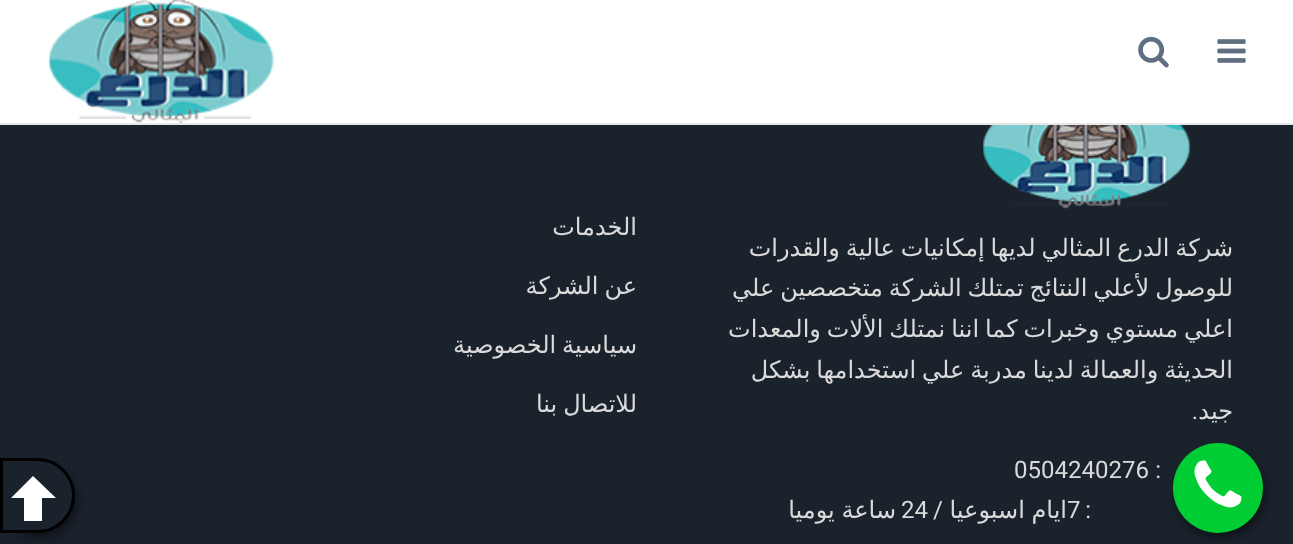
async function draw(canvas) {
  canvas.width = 1293
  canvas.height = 544
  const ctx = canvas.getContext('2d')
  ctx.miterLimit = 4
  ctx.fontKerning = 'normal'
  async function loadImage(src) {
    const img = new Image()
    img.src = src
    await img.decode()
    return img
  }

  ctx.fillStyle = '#1a222c'
  ctx.fillRect(0, 0, 1293, 544)
  ctx.fillStyle = '#fff'
  ctx.fillRect(0, 0, 1293, 123)
  ctx.fillStyle = '#e7e7e7'
  ctx.fillRect(0, 123, 1293, 2)
  ctx.drawImage(await loadImage('image0.png'), 1217, 39, 29, 24)
  ctx.drawImage(await loadImage('image1.png'), 1138, 36, 31, 32)
  ctx.drawImage(await loadImage('image2.png'), 49, 0, 225, 123)
  ctx.drawImage(await loadImage('image3.png'), 983, 125, 207, 84)
  ctx.wordSpacing = '-1.75px'
  ctx.direction = 'rtl'
  ctx.font = '24px DejaVu Sans'
  ctx.fillStyle = '#dadada'
  ctx.fillText('شركة الدرع المثالي لديها إمكانيات عالية والقدرات', 1233, 256)
  ctx.fillText('للوصول لأعلي النتائج تمتلك الشركة متخصصين علي', 1233, 296)
  ctx.fillText('اعلي مستوي وخبرات كما اننا نمتلك الألات والمعدات', 1233, 337)
  ctx.fillText('الحديثة والعمالة لدينا مدربة علي استخدامها بشكل', 1233, 378)
  ctx.wordSpacing = '0px'
  ctx.fillText('جيد', 1233, 419)
  ctx.font = '24px Roboto'
  ctx.fillText('.', 1198, 419)
  ctx.fillText(':', 1161, 478)
  ctx.direction = 'ltr'
  ctx.fillText('0504240276', 1014, 478)
  ctx.direction = 'rtl'
  ctx.fillText(':', 1091, 518)
  ctx.direction = 'ltr'
  ctx.fillText('7', 1067, 518)
  ctx.wordSpacing = '-1px'
  ctx.direction = 'rtl'
  ctx.font = '24px DejaVu Sans'
  ctx.fillText('ايام اسبوعيا', 1067, 518)
  ctx.wordSpacing = '0px'
  ctx.font = '24px Roboto'
  ctx.fillText('/', 943, 518)
  ctx.direction = 'ltr'
  ctx.fillText('24', 901, 518)
  ctx.wordSpacing = '-1px'
  ctx.direction = 'rtl'
  ctx.font = '24px DejaVu Sans'
  ctx.fillText('ساعة يوميا', 896, 518)
  ctx.wordSpacing = '0px'
  ctx.fillText('الخدمات', 637, 235)
  ctx.wordSpacing = '-1.75px'
  ctx.fillText('عن الشركة', 637, 294)
  ctx.fillText('سياسية الخصوصية', 637, 353)
  ctx.fillText('للاتصال بنا', 637, 412)
  ctx.fillStyle = '#00000066'
  ctx.filter = 'blur(4.5px)'
  ctx.beginPath()
  ctx.roundRect(1176, 449, 90, 90, 45)
  ctx.fill()
  ctx.filter = 'none'
  ctx.fillStyle = '#0c3'
  ctx.beginPath()
  ctx.arc(1218, 488, 45, 0, 2 * Math.PI)
  ctx.fill()
  ctx.drawImage(await loadImage('image4.png'), 1194, 460, 48, 48)
  ctx.fillStyle = '#00000066'
  ctx.filter = 'blur(4.5px)'
  ctx.beginPath()
  ctx.roundRect(3, 464, 75, 75, 37.5)
  ctx.fill()
  ctx.filter = 'none'
  ctx.fillStyle = '#1a222c'
  ctx.beginPath()
  ctx.roundRect(1.5, 459.5, 72, 72, [0, 36, 36, 0])
  ctx.fill()
  ctx.strokeStyle = '#000'
  ctx.lineWidth = 3
  ctx.stroke()
  ctx.fillStyle = '#fff'
  ctx.beginPath()
  ctx.moveTo(33, 476)
  ctx.lineTo(56, 498)
  ctx.lineTo(42, 498)
  ctx.lineTo(42, 521)
  ctx.lineTo(24, 521)
  ctx.lineTo(24, 498)
  ctx.lineTo(11, 498)
  ctx.closePath()
  ctx.fill()
}

draw(document.querySelector('canvas'))
